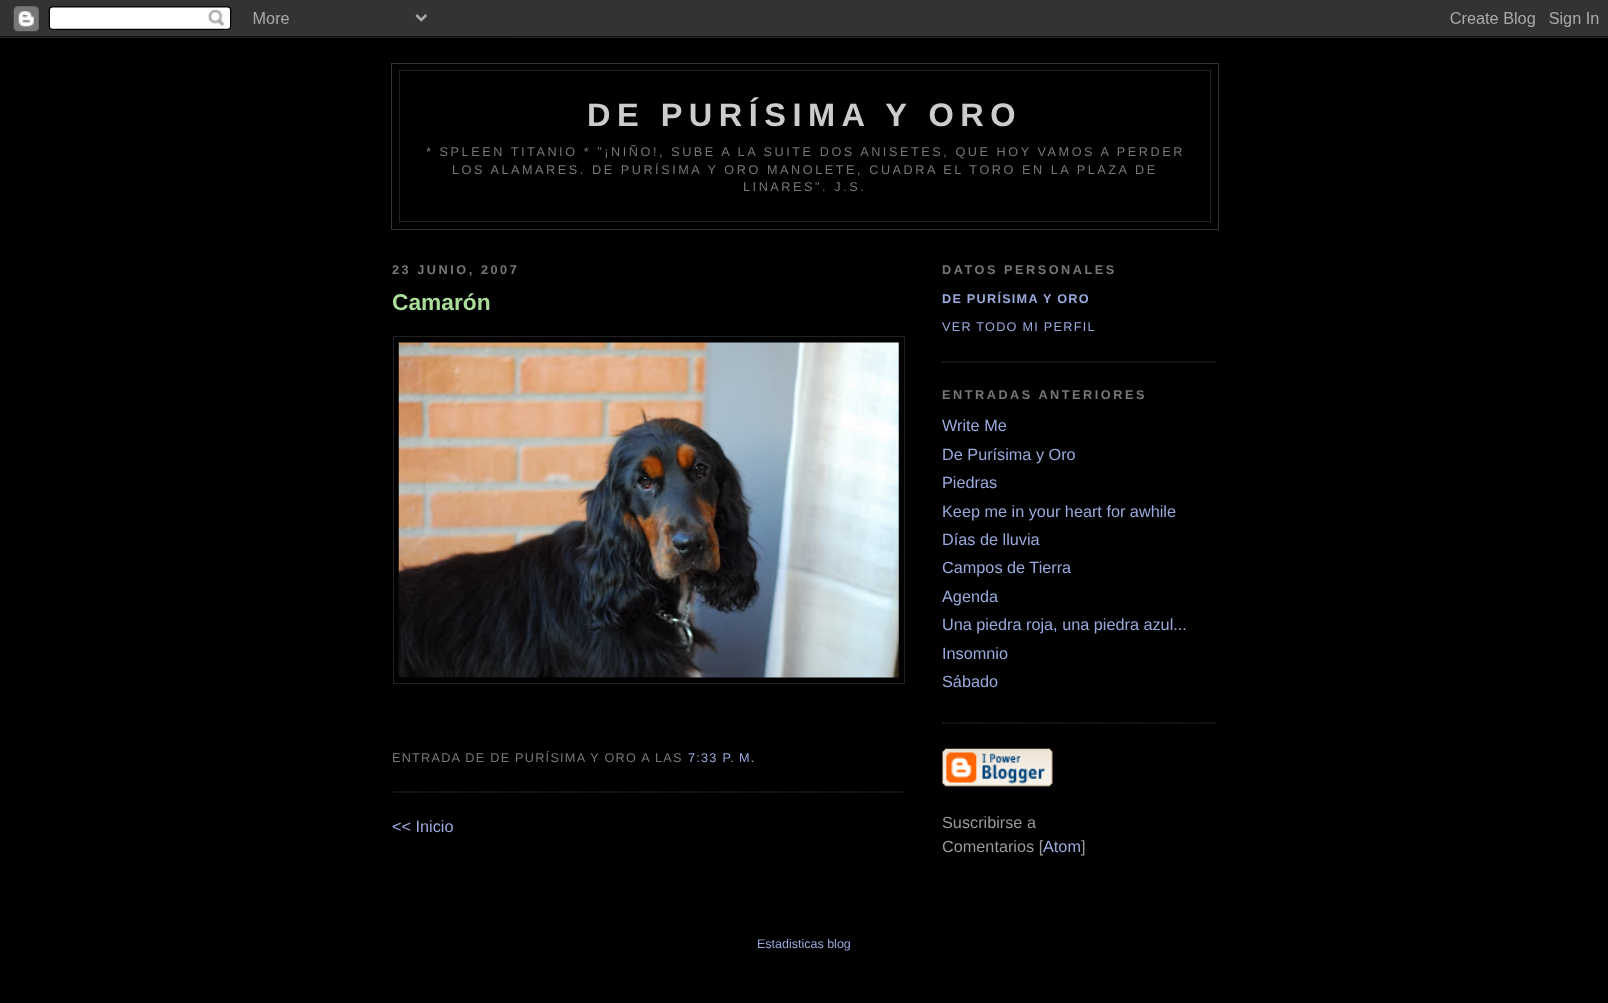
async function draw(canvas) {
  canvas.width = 1608
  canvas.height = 1003
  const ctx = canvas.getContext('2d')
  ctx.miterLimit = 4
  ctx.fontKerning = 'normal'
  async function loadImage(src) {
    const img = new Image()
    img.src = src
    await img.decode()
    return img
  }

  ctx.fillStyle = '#000'
  ctx.fillRect(0, 0, 1608, 1003)
  ctx.drawImage(await loadImage('image0.png'), 0, 0, 1608, 38)
  ctx.strokeStyle = '#333'
  ctx.strokeRect(391.5, 63.5, 827, 166)
  ctx.fillStyle = '#222'
  ctx.fillRect(399, 70, 812, 1)
  ctx.fillRect(1210, 70, 1, 153)
  ctx.fillRect(399, 70, 1, 74)
  ctx.letterSpacing = '6.5px'
  ctx.font = 'bold 32.5px Liberation Sans'
  ctx.fillStyle = '#ccc'
  ctx.fillText('DE PURÍSIMA Y ORO', 587, 126)
  ctx.fillStyle = '#222'
  ctx.fillRect(399, 221, 812, 1)
  ctx.fillRect(399, 144, 1, 79)
  ctx.letterSpacing = '2.55px'
  ctx.font = '12.68px Liberation Sans'
  ctx.fillStyle = '#777'
  ctx.fillText('* SPLEEN TITANIO * "¡NIÑO!, SUBE A LA SUITE DOS ANISETES, QUE HOY VAMOS A PERDER', 426, 156)
  ctx.fillText('LOS ALAMARES. DE PURÍSIMA Y ORO MANOLETE, CUADRA EL TORO EN LA PLAZA DE', 452, 174)
  ctx.fillText('LINARES". J.S.', 743, 191)
  ctx.font = 'bold 12.68px Liberation Sans'
  ctx.fillText('23 JUNIO, 2007', 392, 274)
  ctx.beginPath()
  ctx.moveTo(392.5, 792)
  ctx.lineTo(905, 792)
  ctx.strokeStyle = '#444'
  ctx.lineWidth = 1.2
  ctx.setLineDash([1.25, 1.25])
  ctx.stroke()
  ctx.letterSpacing = '0px'
  ctx.font = 'bold 22.75px Liberation Sans'
  ctx.fillStyle = '#ad9'
  ctx.fillText('Camarón', 392, 310)
  ctx.strokeStyle = '#222'
  ctx.lineWidth = 1
  ctx.setLineDash([])
  ctx.strokeRect(393.5, 336.5, 511, 347)
  ctx.drawImage(await loadImage('image1.png'), 398, 342, 501, 336)
  ctx.letterSpacing = '1.25px'
  ctx.font = '12.68px Liberation Sans'
  ctx.fillStyle = '#777'
  ctx.fillText('ENTRADA DE DE PURÍSIMA Y ORO A LAS', 392, 762)
  ctx.fillStyle = '#9ad'
  ctx.fillText('7:33 P. M.', 688, 762)
  ctx.letterSpacing = '0px'
  ctx.font = '16.25px Liberation Sans'
  ctx.fillText('<< Inicio', 392, 832)
  ctx.beginPath()
  ctx.moveTo(942.5, 362)
  ctx.lineTo(1217.5, 362)
  ctx.strokeStyle = '#444'
  ctx.lineWidth = 1.2
  ctx.setLineDash([1.25, 1.25])
  ctx.stroke()
  ctx.letterSpacing = '2.55px'
  ctx.font = 'bold 12.68px Liberation Sans'
  ctx.fillStyle = '#777'
  ctx.fillText('DATOS PERSONALES', 942, 274)
  ctx.letterSpacing = '1.25px'
  ctx.fillStyle = '#9ad'
  ctx.fillText('DE PURÍSIMA Y ORO', 942, 303)
  ctx.font = '12.68px Liberation Sans'
  ctx.fillText('VER TODO MI PERFIL', 942, 331)
  ctx.letterSpacing = '2.55px'
  ctx.font = 'bold 12.68px Liberation Sans'
  ctx.fillStyle = '#777'
  ctx.fillText('ENTRADAS ANTERIORES', 942, 399)
  ctx.beginPath()
  ctx.moveTo(942.5, 723)
  ctx.lineTo(1217.5, 723)
  ctx.stroke()
  ctx.letterSpacing = '0px'
  ctx.font = '16.25px Liberation Sans'
  ctx.fillStyle = '#9ad'
  ctx.fillText('Write Me', 942, 431)
  ctx.fillText('De Purísima y Oro', 942, 460)
  ctx.fillText('Piedras', 942, 488)
  ctx.fillText('Keep me in your heart for awhile', 942, 517)
  ctx.fillText('Días de lluvia', 942, 545)
  ctx.fillText('Campos de Tierra', 942, 573)
  ctx.fillText('Agenda', 942, 602)
  ctx.fillText('Una piedra roja, una piedra azul...', 942, 630)
  ctx.fillText('Insomnio', 942, 659)
  ctx.fillText('Sábado', 942, 687)
  ctx.drawImage(await loadImage('image2.png'), 942, 748, 111, 39)
  ctx.fillStyle = '#999'
  ctx.fillText('Suscribirse a', 942, 828)
  ctx.fillText('Comentarios [', 942, 852)
  ctx.fillStyle = '#9ad'
  ctx.fillText('Atom', 1043, 852)
  ctx.fillStyle = '#999'
  ctx.fillText(']', 1081, 852)
  ctx.font = '12.5px Liberation Sans'
  ctx.fillStyle = '#9ad'
  ctx.fillText('Estadisticas blog', 757, 948)
}

draw(document.querySelector('canvas'))
